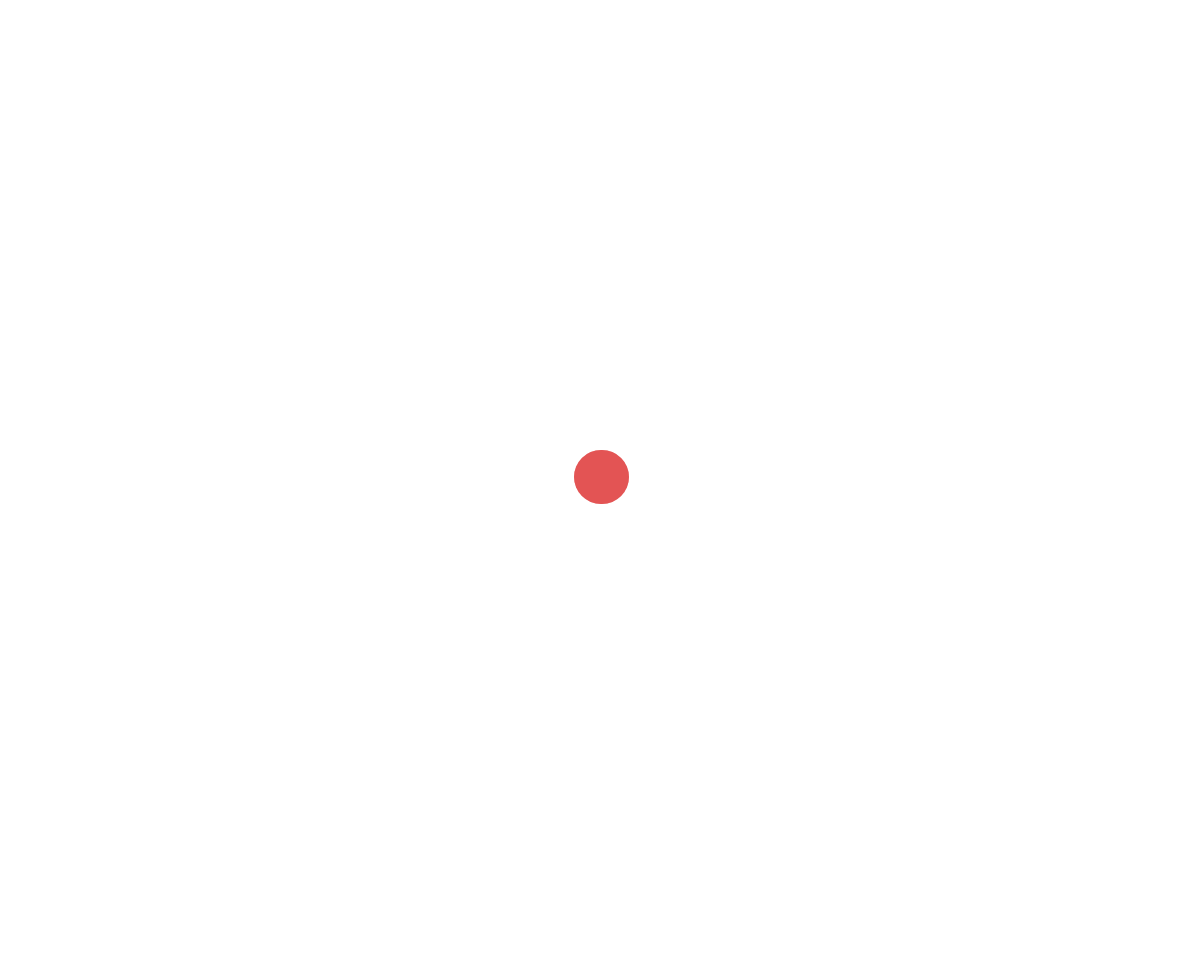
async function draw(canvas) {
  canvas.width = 1202
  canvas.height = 953
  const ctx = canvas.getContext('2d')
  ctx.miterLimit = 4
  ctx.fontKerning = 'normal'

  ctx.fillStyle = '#fff'
  ctx.fillRect(0, 0, 1202, 953)
  ctx.fillStyle = '#eb8585'
  ctx.beginPath()
  ctx.roundRect(574, 450, 55, 54, 27)
  ctx.fill()
  ctx.fillStyle = '#dd333399'
  ctx.beginPath()
  ctx.roundRect(574, 450, 55, 54, 27)
  ctx.fill()
}

draw(document.querySelector('canvas'))
